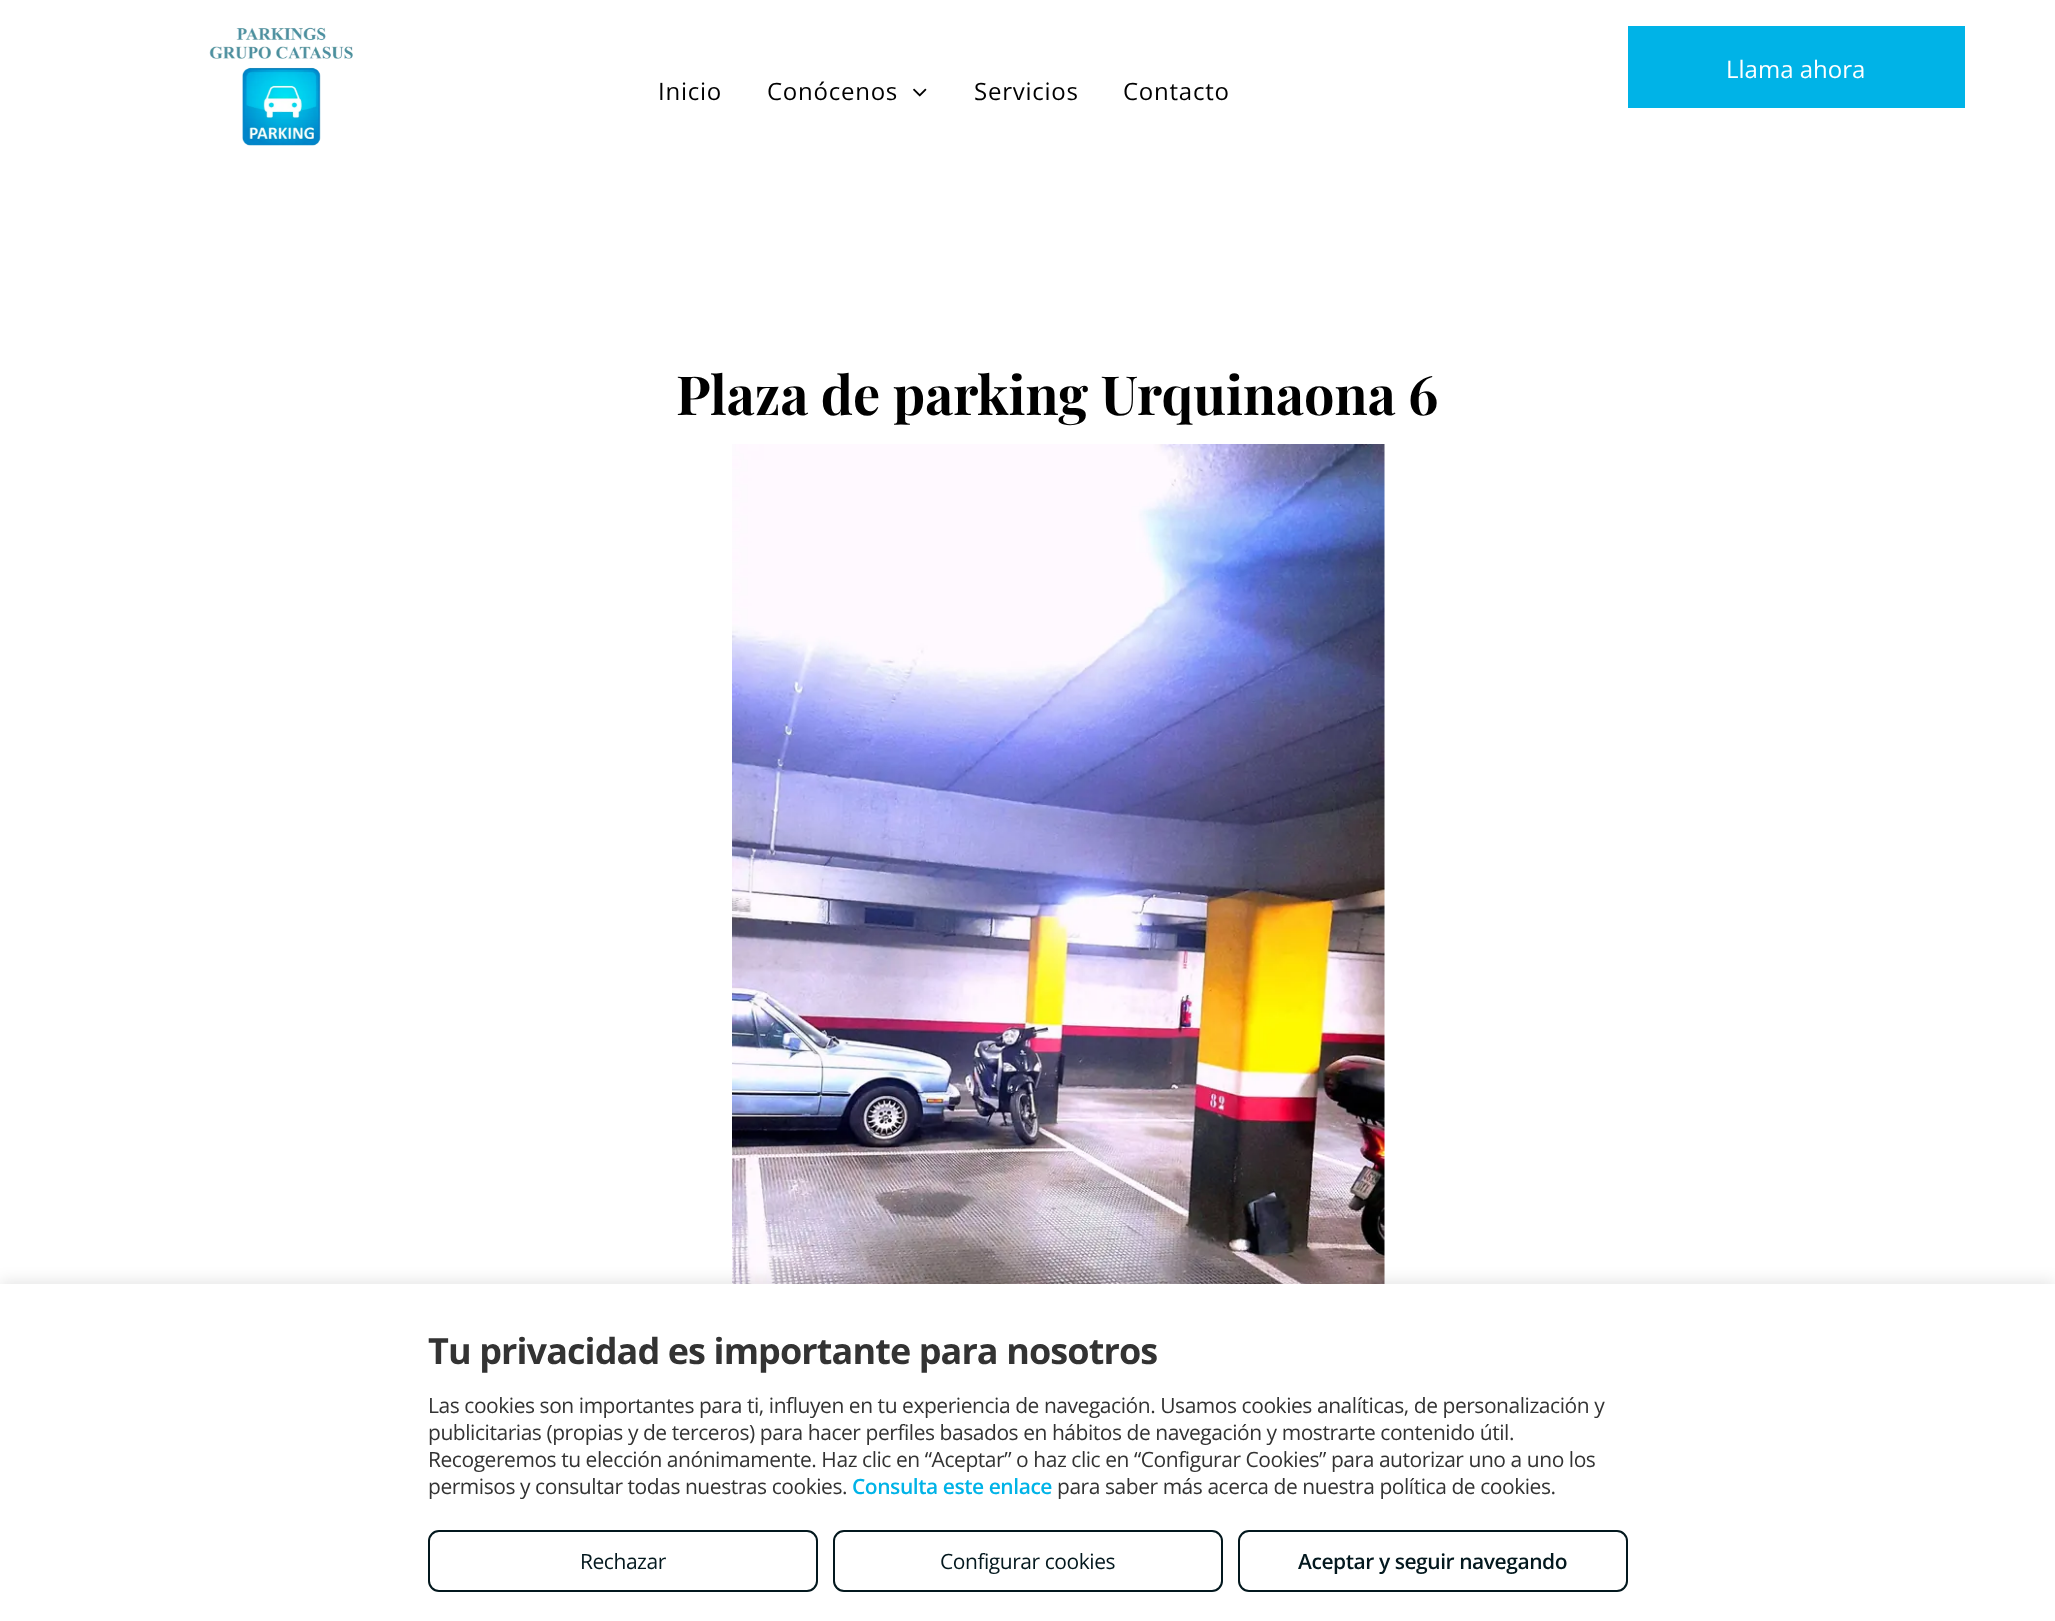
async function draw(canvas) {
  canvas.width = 2055
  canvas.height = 1621
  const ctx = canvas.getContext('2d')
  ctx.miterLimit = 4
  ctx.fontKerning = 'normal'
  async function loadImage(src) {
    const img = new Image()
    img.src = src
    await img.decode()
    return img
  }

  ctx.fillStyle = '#fff'
  ctx.fillRect(0, 0, 2055, 1621)
  ctx.drawImage(await loadImage('image0.png'), 209, 27, 144, 119)
  ctx.fillStyle = '#00b3e7'
  ctx.fillRect(1628, 26, 337, 82)
  ctx.font = '24px Open Sans'
  ctx.fillStyle = '#fff'
  ctx.fillText('Llama ahora', 1726, 78)
  ctx.letterSpacing = '0.75px'
  ctx.fillStyle = '#000'
  ctx.fillText('Inicio', 658, 100)
  ctx.fillText('Conócenos', 767, 100)
  ctx.drawImage(await loadImage('image1.png'), 913, 88, 14, 9)
  ctx.fillText('Servicios', 974, 100)
  ctx.fillText('Contacto', 1123, 100)
  ctx.letterSpacing = '0px'
  ctx.font = 'bold 54px Playfair Display'
  ctx.fillText('Plaza de parking Urquinaona 6', 676, 415)
  ctx.drawImage(await loadImage('image2.png'), 732, 444, 653, 840)
  ctx.fillStyle = '#0000001a'
  ctx.filter = 'blur(7.5px)'
  ctx.beginPath()
  ctx.rect(0, 1281, 2055, 338)
  ctx.fill()
  ctx.filter = 'none'
  ctx.fillStyle = '#fff'
  ctx.fillRect(0, 1284, 2055, 337)
  ctx.letterSpacing = '-0.9px'
  ctx.font = 'bold 36px Open Sans'
  ctx.fillStyle = '#333'
  ctx.fillText('Tu privacidad es importante para nosotros', 428, 1364)
  ctx.letterSpacing = '-0.45px'
  ctx.font = '21px Open Sans'
  ctx.fillText('Las cookies son importantes para ti, influyen en tu experiencia de navegación. Usamos cookies analíticas, de personalización y', 428, 1413)
  ctx.fillText('publicitarias (propias y de terceros) para hacer perfiles basados en hábitos de navegación y mostrarte contenido útil.', 428, 1440)
  ctx.fillText('Recogeremos tu elección anónimamente. Haz clic en “Aceptar” o haz clic en “Configurar Cookies” para autorizar uno a uno los', 428, 1467)
  ctx.fillText('permisos y consultar todas nuestras cookies.', 428, 1494)
  ctx.font = '600 21px Open Sans'
  ctx.fillStyle = '#00b3e7'
  ctx.fillText('Consulta este enlace', 852, 1494)
  ctx.font = '21px Open Sans'
  ctx.fillStyle = '#333'
  ctx.fillText('para saber más acerca de nuestra política de cookies.', 1057, 1494)
  ctx.beginPath()
  ctx.roundRect(429, 1531, 388, 60, 10)
  ctx.strokeStyle = '#03181e'
  ctx.lineWidth = 2
  ctx.stroke()
  ctx.fillStyle = '#03181e'
  ctx.fillText('Rechazar', 580, 1569)
  ctx.beginPath()
  ctx.roundRect(834, 1531, 388, 60, 10)
  ctx.stroke()
  ctx.fillText('Configurar cookies', 940, 1569)
  ctx.beginPath()
  ctx.roundRect(1239, 1531, 388, 60, 10)
  ctx.stroke()
  ctx.font = '600 21px Open Sans'
  ctx.fillText('Aceptar y seguir navegando', 1298, 1569)
}

draw(document.querySelector('canvas'))
